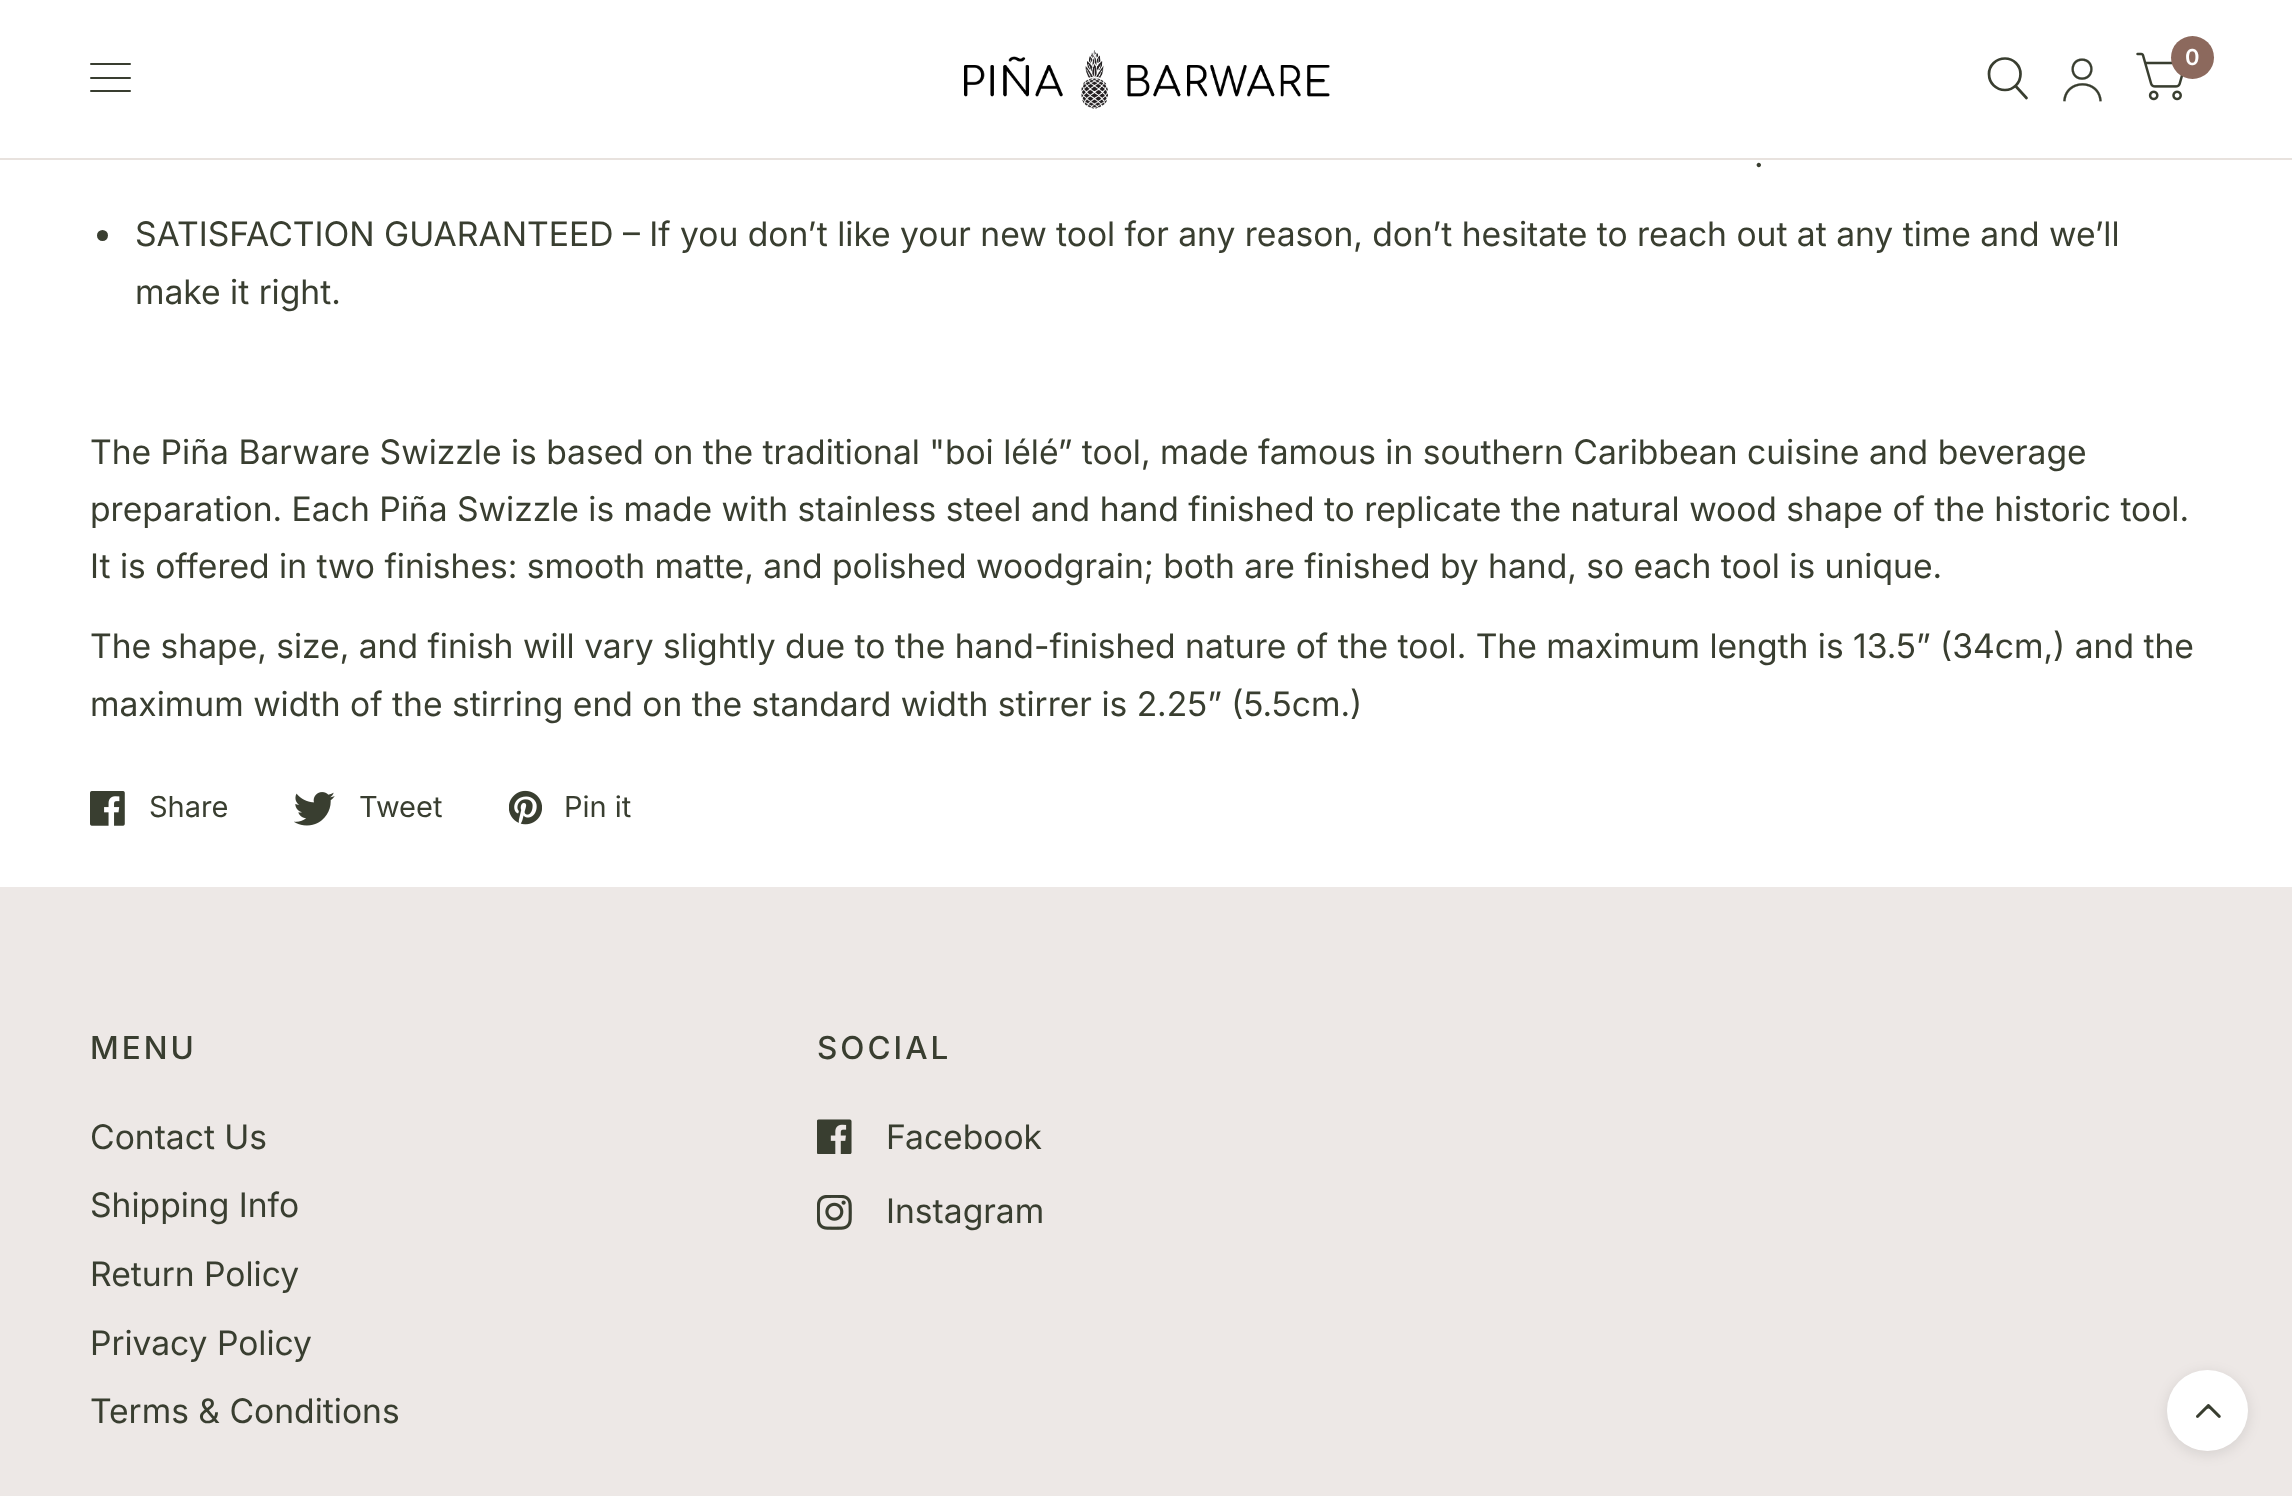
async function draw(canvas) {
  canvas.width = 2292
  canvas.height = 1496
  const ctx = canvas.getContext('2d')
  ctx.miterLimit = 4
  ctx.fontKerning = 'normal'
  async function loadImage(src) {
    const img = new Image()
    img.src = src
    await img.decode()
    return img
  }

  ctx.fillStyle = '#fff'
  ctx.fillRect(0, 0, 2292, 1496)
  ctx.fillStyle = '#e8e2de'
  ctx.fillRect(0, 158, 2292, 2)
  ctx.fillStyle = '#393e30'
  ctx.beginPath()
  ctx.roundRect(90, 63, 41, 2, 1)
  ctx.fill()
  ctx.beginPath()
  ctx.roundRect(90, 77, 41, 2, 1)
  ctx.fill()
  ctx.beginPath()
  ctx.roundRect(90, 90, 41, 2, 1)
  ctx.fill()
  ctx.drawImage(await loadImage('image0.png'), 964, 50, 366, 59)
  ctx.beginPath()
  ctx.moveTo(2016, 86.5)
  ctx.lineTo(2026.5, 98)
  ctx.moveTo(2020.5, 74)
  ctx.bezierCurveTo(2020.5, 83, 2013.5, 90, 2005, 90)
  ctx.bezierCurveTo(1996, 90, 1989, 83, 1989, 74)
  ctx.bezierCurveTo(1989, 65.5, 1996, 58.5, 2005, 58.5)
  ctx.bezierCurveTo(2013.5, 58.5, 2020.5, 65.5, 2020.5, 74)
  ctx.closePath()
  ctx.strokeStyle = '#393e30'
  ctx.lineWidth = 2.7
  ctx.lineCap = 'round'
  ctx.lineJoin = 'round'
  ctx.stroke()
  ctx.drawImage(await loadImage('image1.png'), 2063, 58, 39, 44)
  ctx.drawImage(await loadImage('image2.png'), 2136, 52, 48, 49)
  ctx.fillStyle = '#8c695d'
  ctx.beginPath()
  ctx.arc(2192.5, 57.5, 21.5, 0, 2 * Math.PI)
  ctx.fill()
  ctx.font = '600 22px Inter'
  ctx.fillStyle = '#fff'
  ctx.fillText('0', 2185, 65)
  ctx.font = '33.75px Inter'
  ctx.fillStyle = '#393e30'
  ctx.fillText('.', 1754, 167)
  ctx.beginPath()
  ctx.arc(102.5, 235.5, 5.5, 0, 2 * Math.PI)
  ctx.fill()
  ctx.fillText('SATISFACTION GUARANTEED – If you don’t like your new tool for any reason, don’t hesitate to reach out at any time and we’ll', 135, 246)
  ctx.fillText('make it right.', 135, 304)
  ctx.fillText('The Piña Barware Swizzle is based on the traditional "boi lélé” tool, made famous in southern Caribbean cuisine and beverage', 90, 464)
  ctx.fillText('preparation. Each Piña Swizzle is made with stainless steel and hand finished to replicate the natural wood shape of the historic tool.', 90, 521)
  ctx.fillText('It is offered in two finishes: smooth matte, and polished woodgrain; both are finished by hand, so each tool is unique.', 90, 578)
  ctx.fillText('The shape, size, and finish will vary slightly due to the hand-finished nature of the tool. The maximum length is 13.5” (34cm,) and the', 90, 658)
  ctx.fillText('maximum width of the stirring end on the standard width stirrer is 2.25” (5.5cm.)', 90, 716)
  ctx.drawImage(await loadImage('image3.png'), 90, 791, 35, 35)
  ctx.font = '29px "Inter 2"'
  ctx.fillText('Share', 149, 817)
  ctx.drawImage(await loadImage('image4.png'), 294, 792, 41, 34)
  ctx.fillText('Tweet', 359, 817)
  ctx.drawImage(await loadImage('image5.png'), 509, 790, 33, 35)
  ctx.fillText('Pin it', 564, 817)
  ctx.fillStyle = '#ede8e6'
  ctx.fillRect(0, 887, 2292, 609)
  ctx.letterSpacing = '3px'
  ctx.font = '500 31.5px Inter'
  ctx.fillStyle = '#393e30'
  ctx.fillText('MENU', 90, 1059)
  ctx.letterSpacing = '0px'
  ctx.font = '33.75px Inter'
  ctx.fillText('Contact Us', 90, 1149)
  ctx.fillText('Shipping Info', 90, 1217)
  ctx.fillText('Return Policy', 90, 1286)
  ctx.fillText('Privacy Policy', 90, 1355)
  ctx.fillText('Terms & Conditions', 90, 1423)
  ctx.letterSpacing = '3px'
  ctx.font = '500 31.5px Inter'
  ctx.fillText('SOCIAL', 817, 1059)
  ctx.drawImage(await loadImage('image6.png'), 817, 1119, 35, 35)
  ctx.letterSpacing = '0px'
  ctx.font = '33.75px Inter'
  ctx.fillText('Facebook', 886, 1149)
  ctx.drawImage(await loadImage('image7.png'), 817, 1195, 35, 35)
  ctx.fillText('Instagram', 886, 1223)
  ctx.fillStyle = '#0000001a'
  ctx.filter = 'blur(7px)'
  ctx.beginPath()
  ctx.roundRect(2167, 1373, 81, 81, 40.5)
  ctx.fill()
  ctx.filter = 'none'
  ctx.fillStyle = '#fff'
  ctx.beginPath()
  ctx.arc(2207.5, 1410.5, 40.5, 0, 2 * Math.PI)
  ctx.fill()
  ctx.drawImage(await loadImage('image8.png'), 2196, 1404, 25, 14)
}

draw(document.querySelector('canvas'))
